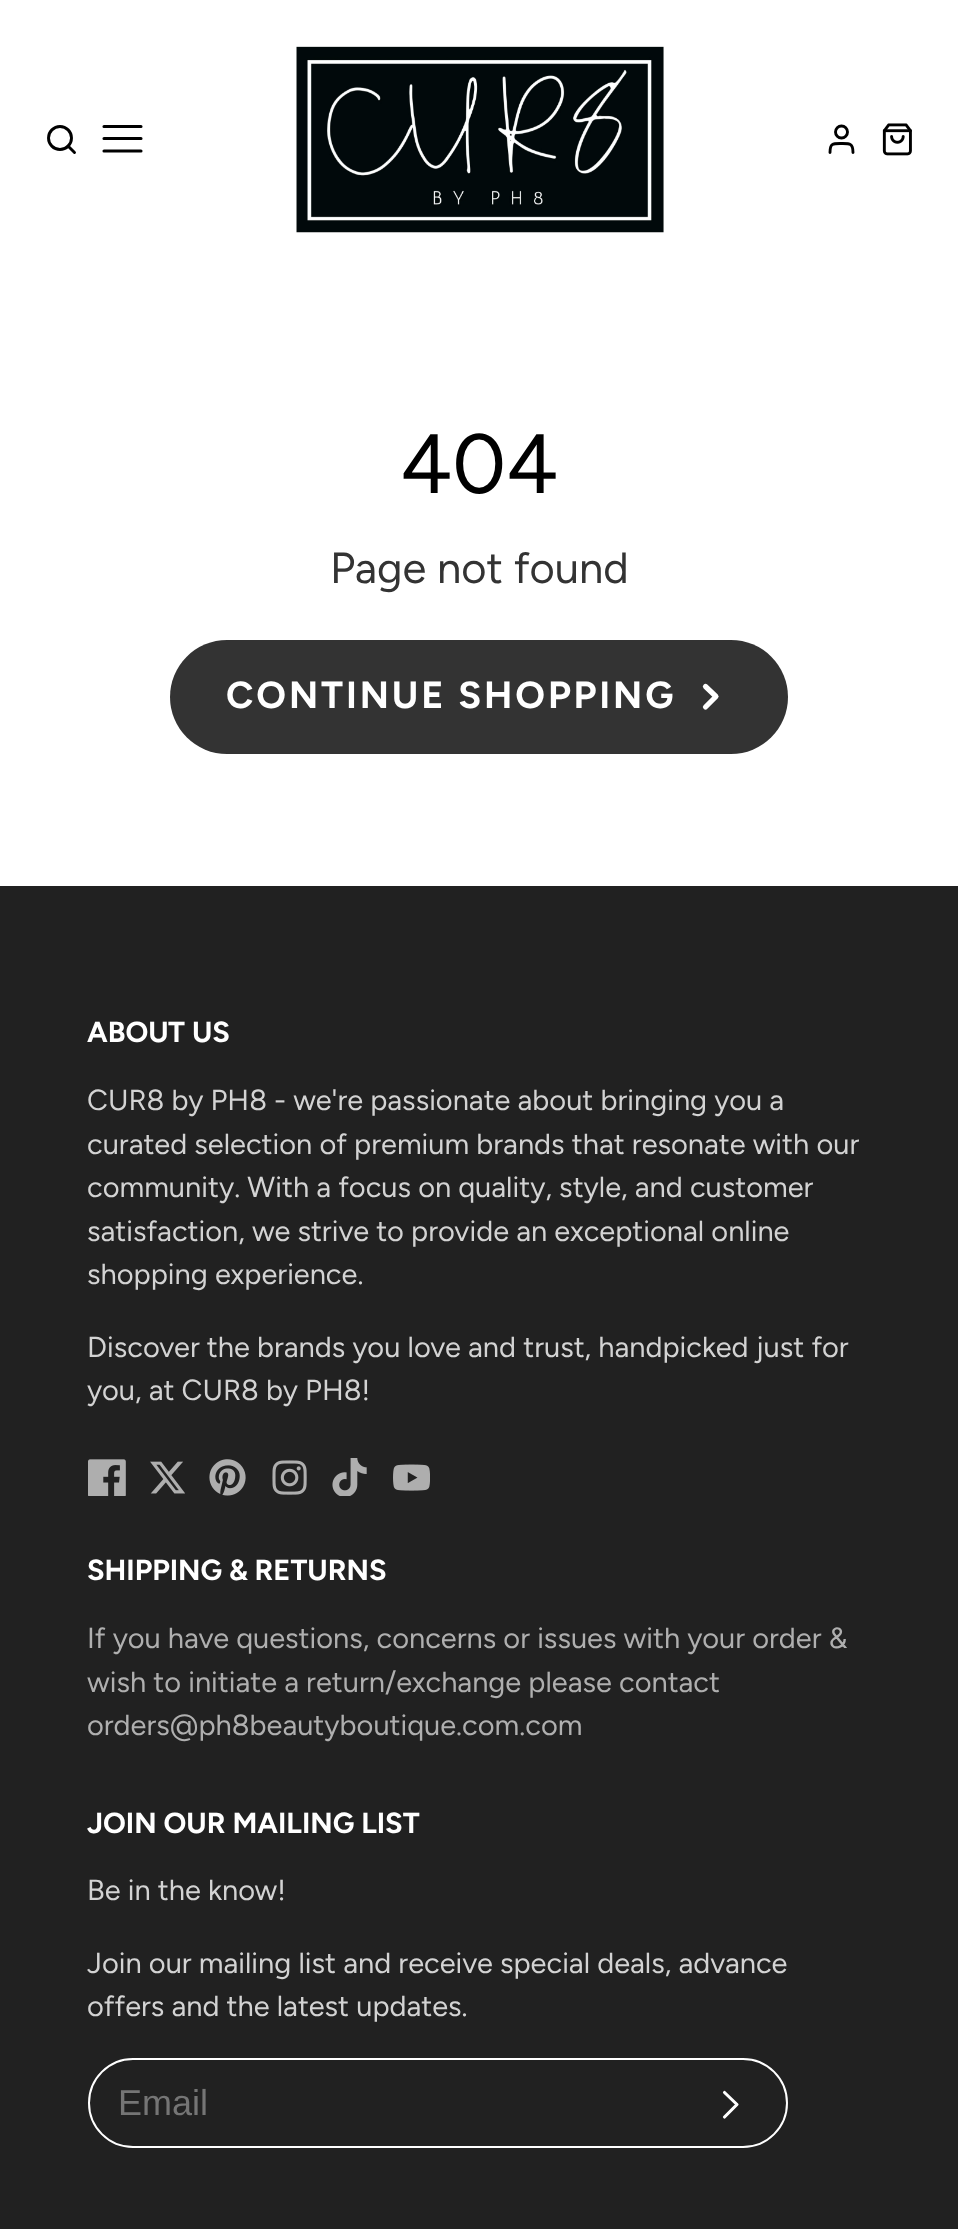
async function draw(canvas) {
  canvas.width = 958
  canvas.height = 2229
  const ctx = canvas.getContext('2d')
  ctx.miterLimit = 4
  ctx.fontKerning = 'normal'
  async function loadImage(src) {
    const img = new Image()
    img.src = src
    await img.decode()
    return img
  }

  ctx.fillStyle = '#fff'
  ctx.fillRect(0, 0, 958, 2229)
  ctx.beginPath()
  ctx.arc(60, 138, 11.5, 0, 2 * Math.PI)
  ctx.strokeStyle = '#000'
  ctx.lineWidth = 2.9
  ctx.stroke()
  ctx.beginPath()
  ctx.moveTo(74.5, 152.5)
  ctx.lineTo(68, 146)
  ctx.lineCap = 'round'
  ctx.lineJoin = 'round'
  ctx.stroke()
  ctx.beginPath()
  ctx.moveTo(104, 138.5)
  ctx.lineTo(141, 138.5)
  ctx.moveTo(104, 126.5)
  ctx.lineTo(141, 126.5)
  ctx.moveTo(104, 151)
  ctx.lineTo(141, 151)
  ctx.lineWidth = 3.1
  ctx.stroke()
  ctx.drawImage(await loadImage('image0.png'), 296, 46, 368, 187)
  ctx.beginPath()
  ctx.arc(841.5, 132, 6, 0, 2 * Math.PI)
  ctx.lineWidth = 2.9
  ctx.stroke()
  ctx.beginPath()
  ctx.moveTo(853, 152.5)
  ctx.bezierCurveTo(853, 143, 849.5, 143.5, 841.5, 143.5)
  ctx.bezierCurveTo(833, 143.5, 830, 143, 830, 152.5)
  ctx.stroke()
  ctx.drawImage(await loadImage('image1.png'), 882, 123, 30, 33)
  ctx.font = '84px Figtree'
  ctx.fillStyle = '#000'
  ctx.fillText('404', 400, 493)
  ctx.font = '43.5px Figtree'
  ctx.fillStyle = '#333'
  ctx.fillText('Page not found', 330, 583)
  ctx.beginPath()
  ctx.roundRect(170, 640, 618, 114, 57)
  ctx.fill()
  ctx.letterSpacing = '2.9px'
  ctx.font = 'bold 37.75px Figtree'
  ctx.fillStyle = '#fff'
  ctx.fillText('CONTINUE SHOPPING', 226, 708)
  ctx.beginPath()
  ctx.moveTo(705.5, 707)
  ctx.lineTo(716, 696.5)
  ctx.lineTo(705.5, 686.5)
  ctx.strokeStyle = '#fff'
  ctx.lineWidth = 5.2
  ctx.stroke()
  ctx.fillStyle = '#212121'
  ctx.fillRect(0, 886, 958, 1343)
  ctx.letterSpacing = '0px'
  ctx.font = 'bold 29px Figtree'
  ctx.fillStyle = '#fff'
  ctx.fillText('ABOUT US', 87, 1042)
  ctx.font = '29px Figtree'
  ctx.fillStyle = '#d3d3d3'
  ctx.fillText('CUR8 by PH8 - we\'re passionate about bringing you a', 87, 1110)
  ctx.fillText('curated selection of premium brands that resonate with our', 87, 1154)
  ctx.fillText('community. With a focus on quality, style, and customer', 87, 1197)
  ctx.fillText('satisfaction, we strive to provide an exceptional online', 87, 1241)
  ctx.fillText('shopping experience.', 87, 1284)
  ctx.fillText('Discover the brands you love and trust, handpicked just for', 87, 1357)
  ctx.fillText('you, at CUR8 by PH8!', 87, 1400)
  ctx.drawImage(await loadImage('image2.png'), 88, 1459, 38, 37)
  ctx.drawImage(await loadImage('image3.png'), 150, 1461, 35, 33)
  ctx.drawImage(await loadImage('image4.png'), 209, 1459, 37, 37)
  ctx.drawImage(await loadImage('image5.png'), 272, 1460, 35, 35)
  ctx.drawImage(await loadImage('image6.png'), 332, 1458, 35, 38)
  ctx.drawImage(await loadImage('image7.png'), 393, 1464, 37, 27)
  ctx.font = 'bold 29px Figtree'
  ctx.fillStyle = '#fff'
  ctx.fillText('SHIPPING & RETURNS', 87, 1580)
  ctx.font = '29px Figtree'
  ctx.fillStyle = '#afafaf'
  ctx.fillText('If you have questions, concerns or issues with your order &', 87, 1648)
  ctx.fillText('wish to initiate a return/exchange please contact', 87, 1692)
  ctx.fillText('orders@ph8beautyboutique.com.com', 87, 1735)
  ctx.font = 'bold 29px Figtree'
  ctx.fillStyle = '#fff'
  ctx.fillText('JOIN OUR MAILING LIST', 87, 1833)
  ctx.font = '29px Figtree'
  ctx.fillStyle = '#d3d3d3'
  ctx.fillText('Be in the know!', 87, 1900)
  ctx.fillText('Join our mailing list and receive special deals, advance', 87, 1973)
  ctx.fillText('offers and the latest updates.', 87, 2016)
  ctx.beginPath()
  ctx.roundRect(89, 2059, 698, 88, 44)
  ctx.lineWidth = 2
  ctx.lineJoin = 'miter'
  ctx.stroke()
  ctx.font = '36px Liberation Sans'
  ctx.fillStyle = '#757575'
  ctx.fillText('Email', 118, 2115)
  ctx.beginPath()
  ctx.moveTo(724.5, 2117)
  ctx.lineTo(737, 2104.5)
  ctx.lineTo(724.5, 2092.5)
  ctx.lineWidth = 3.1
  ctx.lineJoin = 'round'
  ctx.stroke()
}

draw(document.querySelector('canvas'))
